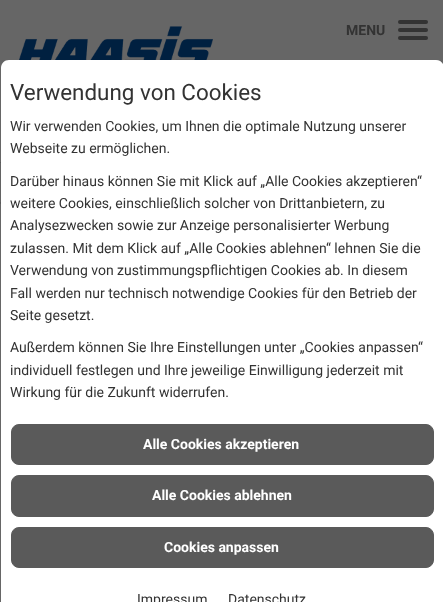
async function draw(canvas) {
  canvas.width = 443
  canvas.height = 602
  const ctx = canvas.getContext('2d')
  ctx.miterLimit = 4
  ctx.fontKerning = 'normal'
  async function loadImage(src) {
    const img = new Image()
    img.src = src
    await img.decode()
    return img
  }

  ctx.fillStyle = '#666'
  ctx.fillRect(0, 0, 443, 602)
  ctx.drawImage(await loadImage('image0.png'), 19, 26, 194, 34)
  ctx.font = 'bold 14px Roboto'
  ctx.fillStyle = '#333'
  ctx.fillText('MENU', 346, 35)
  ctx.beginPath()
  ctx.roundRect(398, 20, 30, 4, 2)
  ctx.fill()
  ctx.beginPath()
  ctx.roundRect(398, 28, 30, 4, 2)
  ctx.fill()
  ctx.beginPath()
  ctx.roundRect(398, 36, 30, 4, 2)
  ctx.fill()
  ctx.fillStyle = '#0000001a'
  ctx.filter = 'blur(0.5px)'
  ctx.beginPath()
  ctx.rect(0, 163, 443, 41)
  ctx.fill()
  ctx.filter = 'none'
  ctx.fillStyle = '#636363'
  ctx.fillRect(0, 163, 1, 39)
  ctx.fillStyle = '#595959'
  ctx.fillRect(0, 162, 1, 1)
  ctx.fillRect(0, 202, 1, 1)
  ctx.fillStyle = '#fff'
  ctx.beginPath()
  ctx.moveTo(9, 60)
  ctx.lineTo(436, 60)
  ctx.bezierCurveTo(440.5, 60, 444, 63.5, 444, 68)
  ctx.lineTo(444, 602)
  ctx.lineTo(1, 602)
  ctx.lineTo(1, 68)
  ctx.bezierCurveTo(1, 63.5, 4.5, 60, 9, 60)
  ctx.closePath()
  ctx.fill()
  ctx.font = '22.4px Roboto'
  ctx.fillStyle = '#333'
  ctx.fillText('Verwendung von Cookies', 10, 100)
  ctx.font = '14px Roboto'
  ctx.fillText('Wir verwenden Cookies, um Ihnen die optimale Nutzung unserer', 10, 131)
  ctx.fillText('Webseite zu ermöglichen.', 10, 153)
  ctx.fillText('Darüber hinaus können Sie mit Klick auf „Alle Cookies akzeptieren“', 10, 186)
  ctx.fillText('weitere Cookies, einschließlich solcher von Drittanbietern, zu', 10, 208)
  ctx.fillText('Analysezwecken sowie zur Anzeige personalisierter Werbung', 10, 230)
  ctx.fillText('zulassen. Mit dem Klick auf „Alle Cookies ablehnen“ lehnen Sie die', 10, 253)
  ctx.fillText('Verwendung von zustimmungspflichtigen Cookies ab. In diesem', 10, 275)
  ctx.fillText('Fall werden nur technisch notwendige Cookies für den Betrieb der', 10, 298)
  ctx.fillText('Seite gesetzt.', 10, 320)
  ctx.fillText('Außerdem können Sie Ihre Einstellungen unter „Cookies anpassen“', 10, 352)
  ctx.fillText('individuell festlegen und Ihre jeweilige Einwilligung jederzeit mit', 10, 375)
  ctx.fillText('Wirkung für die Zukunft widerrufen.', 10, 397)
  ctx.fillStyle = '#5a5a5a'
  ctx.beginPath()
  ctx.roundRect(11.5, 424.5, 422, 40, 7.5)
  ctx.fill()
  ctx.strokeStyle = '#5a5a5a'
  ctx.stroke()
  ctx.font = 'bold 14px Roboto'
  ctx.fillStyle = '#fff'
  ctx.fillText('Alle Cookies akzeptieren', 143, 449)
  ctx.fillStyle = '#5a5a5a'
  ctx.beginPath()
  ctx.roundRect(11.5, 475.5, 422, 41, 7.5)
  ctx.fill()
  ctx.stroke()
  ctx.fillStyle = '#fff'
  ctx.fillText('Alle Cookies ablehnen', 152, 500)
  ctx.fillStyle = '#5a5a5a'
  ctx.beginPath()
  ctx.roundRect(11.5, 527.5, 422, 40, 7.5)
  ctx.fill()
  ctx.stroke()
  ctx.fillStyle = '#fff'
  ctx.fillText('Cookies anpassen', 164, 552)
  ctx.font = '14px Roboto'
  ctx.fillStyle = '#333'
  ctx.fillText('Impressum', 137, 604)
  ctx.fillText('Datenschutz', 228, 604)
}

draw(document.querySelector('canvas'))
